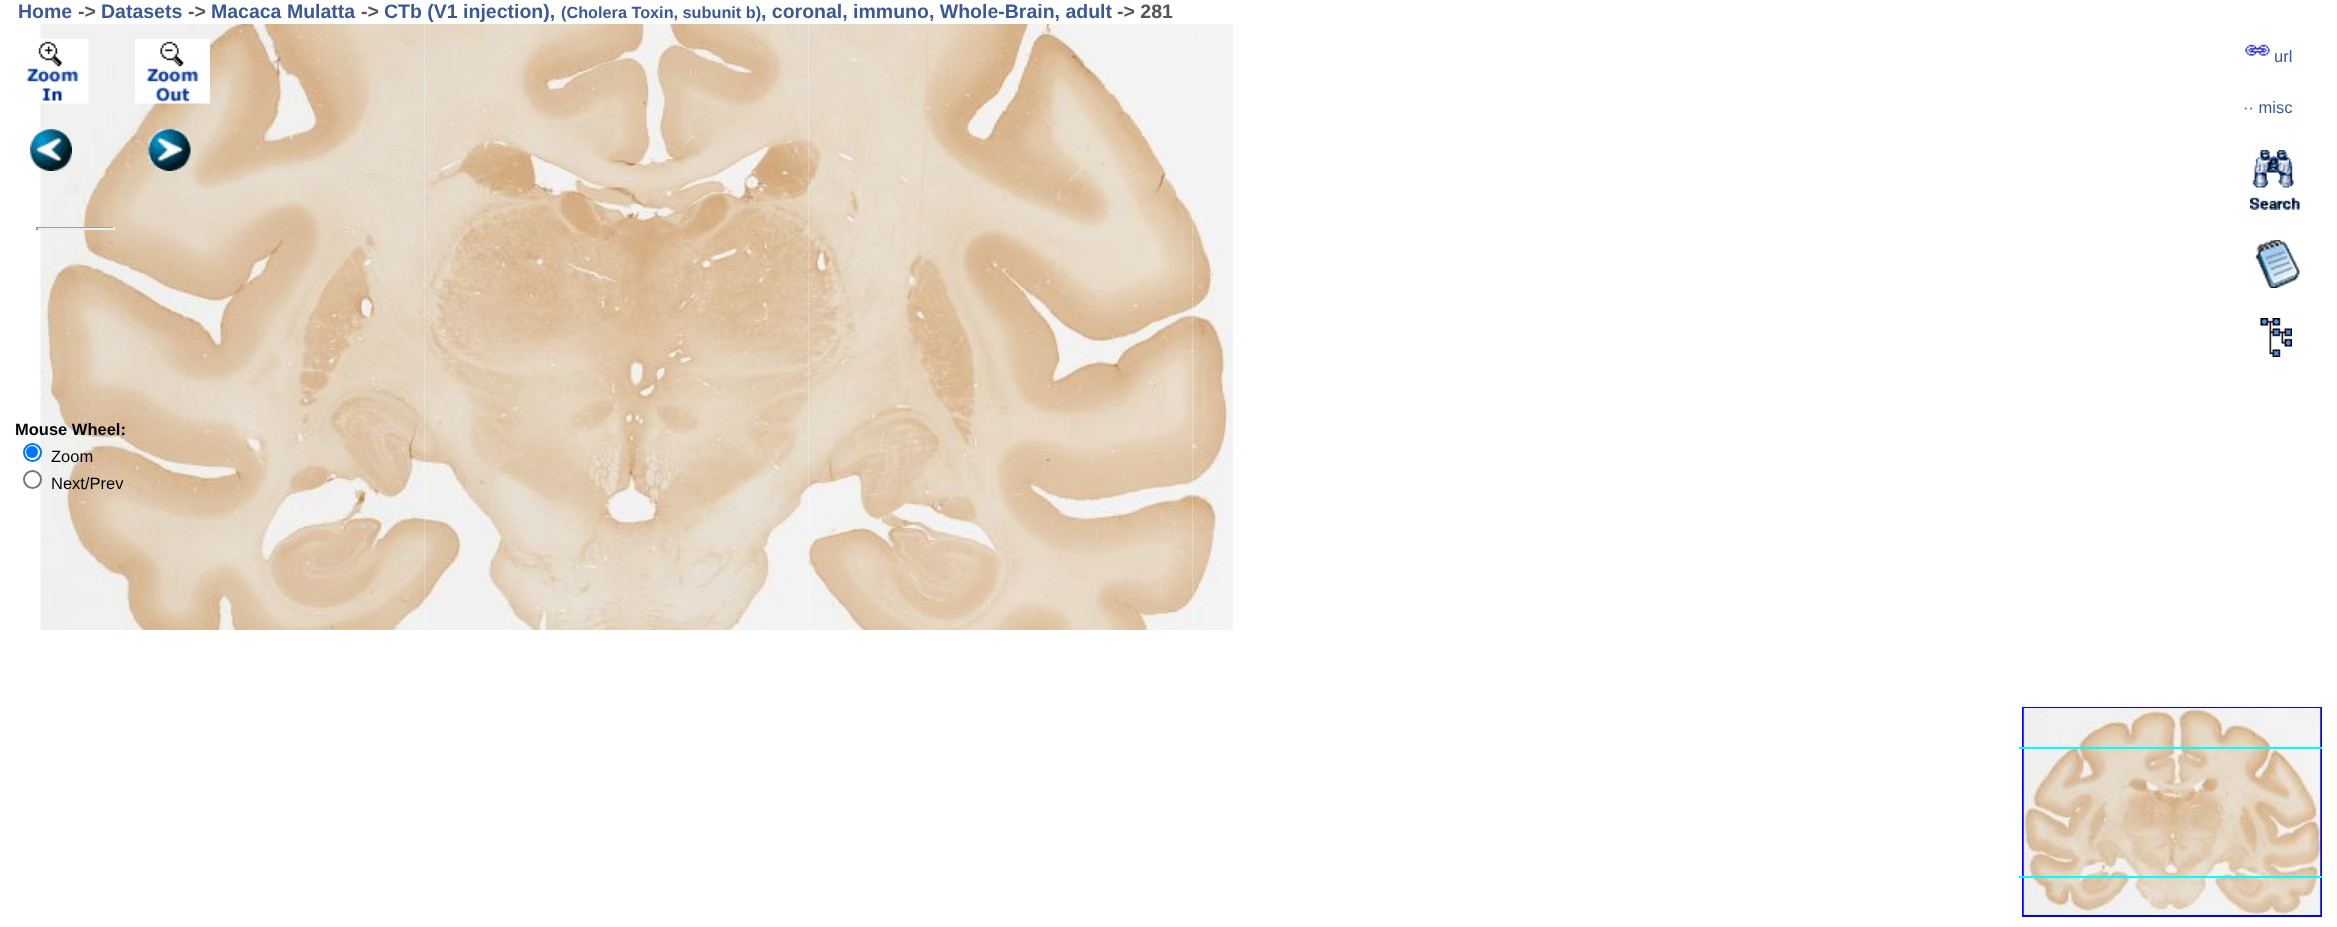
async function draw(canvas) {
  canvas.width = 2337
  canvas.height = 927
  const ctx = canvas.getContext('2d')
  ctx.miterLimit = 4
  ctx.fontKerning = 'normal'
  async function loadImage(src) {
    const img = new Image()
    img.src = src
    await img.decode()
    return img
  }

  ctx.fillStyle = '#fff'
  ctx.fillRect(0, 0, 2337, 927)
  ctx.font = 'bold 19.5px Liberation Sans'
  ctx.fillStyle = '#3b5998'
  ctx.fillText('Home', 18, 18)
  ctx.fillStyle = '#555'
  ctx.fillText('->', 78, 18)
  ctx.fillStyle = '#3b5998'
  ctx.fillText('Datasets', 101, 18)
  ctx.fillStyle = '#555'
  ctx.fillText('->', 188, 18)
  ctx.fillStyle = '#3b5998'
  ctx.fillText('Macaca Mulatta', 211, 18)
  ctx.fillStyle = '#555'
  ctx.fillText('->', 361, 18)
  ctx.fillStyle = '#3b5998'
  ctx.fillText('CTb (V1 injection),', 384, 18)
  ctx.font = 'bold 16.25px Liberation Sans'
  ctx.fillText('(Cholera Toxin, subunit b)', 561, 18)
  ctx.font = 'bold 19.5px Liberation Sans'
  ctx.fillText(', coronal, immuno, Whole-Brain, adult', 761, 18)
  ctx.fillStyle = '#555'
  ctx.fillText('-> 281', 1117, 18)
  ctx.drawImage(await loadImage('image0.png'), 40, 24, 385, 222)
  ctx.drawImage(await loadImage('image1.png'), 424, 24, 385, 222)
  ctx.drawImage(await loadImage('image2.png'), 808, 24, 385, 222)
  ctx.drawImage(await loadImage('image3.png'), 1192, 24, 41, 222)
  ctx.drawImage(await loadImage('image4.png'), 40, 246, 385, 384)
  ctx.drawImage(await loadImage('image5.png'), 424, 246, 385, 384)
  ctx.drawImage(await loadImage('image6.png'), 808, 246, 385, 384)
  ctx.drawImage(await loadImage('image7.png'), 1192, 246, 41, 384)
  ctx.drawImage(await loadImage('image8.png'), 26, 39, 63, 65)
  ctx.drawImage(await loadImage('image9.png'), 135, 39, 75, 65)
  ctx.drawImage(await loadImage('image10.png'), 30, 129, 42, 42)
  ctx.drawImage(await loadImage('image11.png'), 148, 129, 43, 42)
  ctx.strokeStyle = '#00f'
  ctx.lineWidth = 2
  ctx.strokeRect(2023, 708, 298, 208)
  ctx.drawImage(await loadImage('image12.png'), 2023, 708, 298, 207)
  ctx.save()
  ctx.beginPath()
  ctx.rect(2019, 707, 303, 211)
  ctx.clip()
  ctx.strokeStyle = '#0ff'
  ctx.strokeRect(2010, 748, 320, 129)
  ctx.restore()
  ctx.drawImage(await loadImage('image13.png'), 2245, 44, 25, 12)
  ctx.font = '16.5px Liberation Sans'
  ctx.fillStyle = '#3b5998'
  ctx.fillText('url', 2274, 62)
  ctx.fillText('·· misc', 2243, 113)
  ctx.drawImage(await loadImage('image14.png'), 2250, 150, 50, 60)
  ctx.fillStyle = '#9f9f9f'
  ctx.fillRect(36, 227, 78, 1)
  ctx.fillStyle = '#eee'
  ctx.fillRect(113, 227, 2, 3)
  ctx.fillRect(36, 228, 78, 2)
  ctx.fillStyle = '#9f9f9f'
  ctx.fillRect(36, 227, 2, 3)
  ctx.drawImage(await loadImage('image15.png'), 2255, 240, 45, 48)
  ctx.drawImage(await loadImage('image16.png'), 2260, 318, 32, 39)
  ctx.font = 'bold 16.5px Liberation Sans'
  ctx.fillStyle = '#000'
  ctx.fillText('Mouse Wheel:', 15, 435)
  ctx.fillStyle = '#fff'
  ctx.beginPath()
  ctx.arc(32.5, 452.5, 8.5, 0, 2 * Math.PI)
  ctx.fill()
  ctx.strokeStyle = '#0075ff'
  ctx.stroke()
  ctx.fillStyle = '#0075ff'
  ctx.beginPath()
  ctx.arc(32, 452, 6, 0, 2 * Math.PI)
  ctx.fill()
  ctx.font = '16.5px Liberation Sans'
  ctx.fillStyle = '#000'
  ctx.fillText('Zoom', 51, 462)
  ctx.fillStyle = '#fff'
  ctx.beginPath()
  ctx.arc(32.5, 479.5, 8.5, 0, 2 * Math.PI)
  ctx.fill()
  ctx.strokeStyle = '#767676'
  ctx.stroke()
  ctx.fillStyle = '#000'
  ctx.fillText('Next/Prev', 51, 489)
}

draw(document.querySelector('canvas'))
